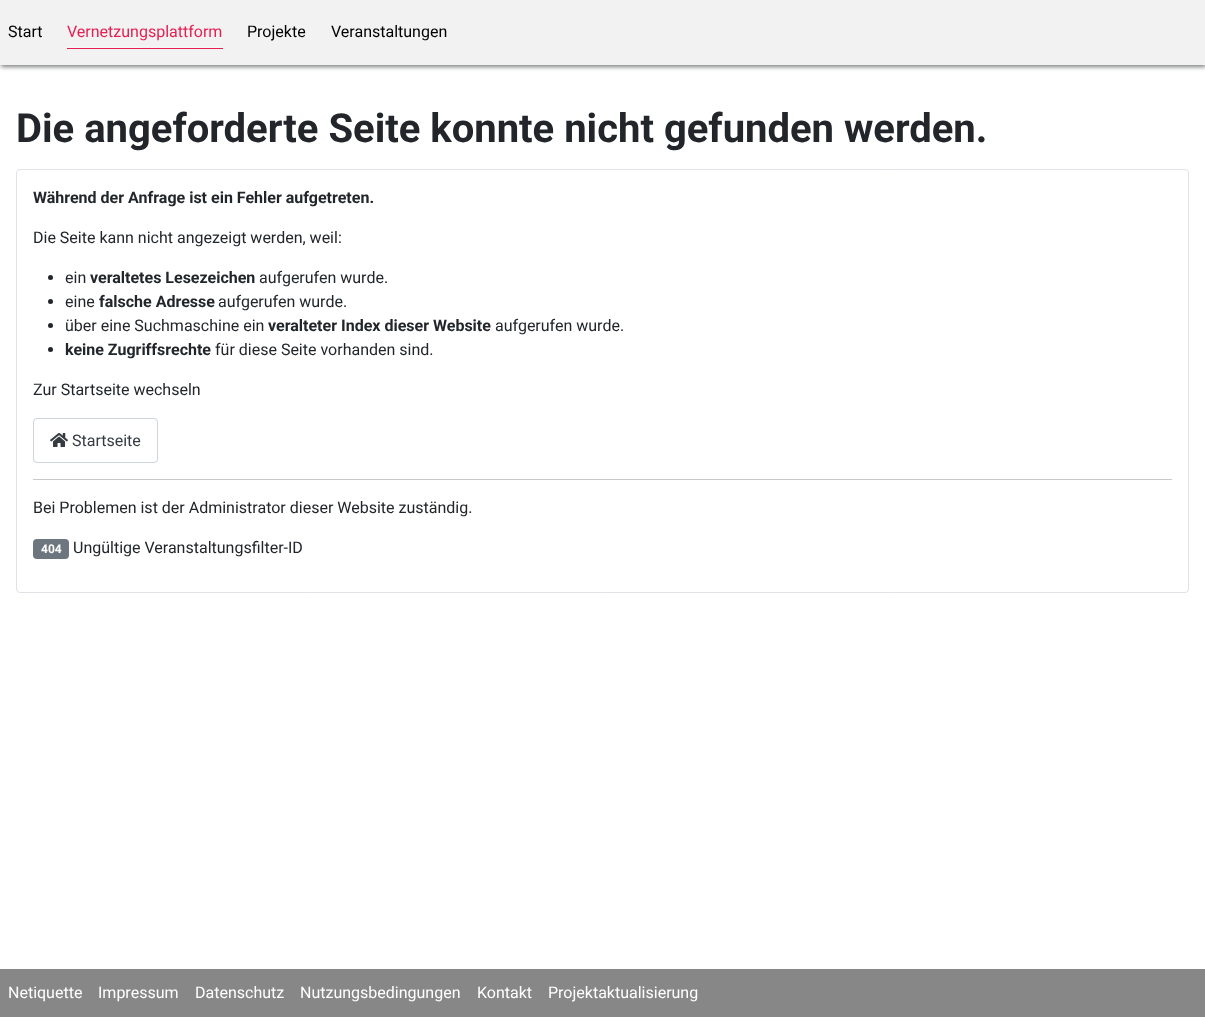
async function draw(canvas) {
  canvas.width = 1205
  canvas.height = 1017
  const ctx = canvas.getContext('2d')
  ctx.miterLimit = 4
  ctx.fontKerning = 'normal'
  async function loadImage(src) {
    const img = new Image()
    img.src = src
    await img.decode()
    return img
  }

  ctx.fillStyle = '#fff'
  ctx.fillRect(0, 0, 1205, 1017)
  ctx.fillStyle = '#00030580'
  ctx.filter = 'blur(2px)'
  ctx.beginPath()
  ctx.rect(1, 2, 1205, 65)
  ctx.fill()
  ctx.filter = 'none'
  ctx.fillStyle = '#f2f2f2'
  ctx.fillRect(0, 0, 1205, 65)
  ctx.font = '16px Roboto'
  ctx.fillStyle = '#000'
  ctx.fillText('Start', 8, 37)
  ctx.fillStyle = '#e61e52'
  ctx.fillRect(67, 48, 156, 1)
  ctx.fillText('Vernetzungsplattform', 67, 37)
  ctx.fillStyle = '#f5f5f5'
  ctx.fillRect(67, 46, 154, 2)
  ctx.fillStyle = '#000'
  ctx.fillText('Projekte', 247, 37)
  ctx.fillText('Veranstaltungen', 331, 37)
  ctx.font = 'bold 40px Roboto'
  ctx.fillStyle = '#22262a'
  ctx.fillText('Die angeforderte Seite konnte nicht gefunden werden.', 16, 142)
  ctx.beginPath()
  ctx.roundRect(16.5, 169.5, 1172, 423, 3.5)
  ctx.strokeStyle = '#dfe3e7'
  ctx.stroke()
  ctx.font = 'bold 16px Roboto'
  ctx.fillText('Während der Anfrage ist ein Fehler aufgetreten.', 33, 203)
  ctx.font = '16px Roboto'
  ctx.fillText('Die Seite kann nicht angezeigt werden, weil:', 33, 243)
  ctx.beginPath()
  ctx.arc(50.5, 277.5, 2.5, 0, 2 * Math.PI)
  ctx.fill()
  ctx.fillText('ein', 65, 283)
  ctx.font = 'bold 16px Roboto'
  ctx.fillText('veraltetes Lesezeichen', 90, 283)
  ctx.font = '16px Roboto'
  ctx.fillText('aufgerufen wurde.', 259, 283)
  ctx.beginPath()
  ctx.arc(50.5, 301.5, 2.5, 0, 2 * Math.PI)
  ctx.fill()
  ctx.fillText('eine', 65, 307)
  ctx.font = 'bold 16px Roboto'
  ctx.fillText('falsche Adresse', 99, 307)
  ctx.font = '16px Roboto'
  ctx.fillText('aufgerufen wurde.', 218, 307)
  ctx.beginPath()
  ctx.arc(50.5, 325.5, 2.5, 0, 2 * Math.PI)
  ctx.fill()
  ctx.fillText('über eine Suchmaschine ein', 65, 331)
  ctx.font = 'bold 16px Roboto'
  ctx.fillText('veralteter Index dieser Website', 268, 331)
  ctx.font = '16px Roboto'
  ctx.fillText('aufgerufen wurde.', 495, 331)
  ctx.beginPath()
  ctx.arc(50.5, 349.5, 2.5, 0, 2 * Math.PI)
  ctx.fill()
  ctx.font = 'bold 16px Roboto'
  ctx.fillText('keine Zugriffsrechte', 65, 355)
  ctx.font = '16px Roboto'
  ctx.fillText('für diese Seite vorhanden sind.', 215, 355)
  ctx.fillText('Zur Startseite wechseln', 33, 395)
  ctx.beginPath()
  ctx.roundRect(33.5, 418.5, 124, 44, 3.5)
  ctx.strokeStyle = '#ced4da'
  ctx.stroke()
  ctx.drawImage(await loadImage('image0.png'), 50, 433, 18, 14)
  ctx.fillStyle = '#353b41'
  ctx.fillText('Startseite', 72, 446)
  ctx.fillStyle = '#c8c9ca'
  ctx.fillRect(33, 479, 1139, 1)
  ctx.fillStyle = '#22262a'
  ctx.fillText('Bei Problemen ist der Administrator dieser Website zuständig.', 33, 513)
  ctx.fillStyle = '#6d757e'
  ctx.beginPath()
  ctx.roundRect(33, 539, 36, 20, 4)
  ctx.fill()
  ctx.font = 'bold 12px Roboto'
  ctx.fillStyle = '#fff'
  ctx.fillText('404', 41, 553)
  ctx.font = '16px Roboto'
  ctx.fillStyle = '#22262a'
  ctx.fillText('Ungültige Veranstaltungsfilter-ID', 73, 553)
  ctx.fillStyle = '#878787'
  ctx.fillRect(0, 969, 1205, 48)
  ctx.fillStyle = '#fff'
  ctx.fillText('Netiquette', 8, 998)
  ctx.fillText('Impressum', 98, 998)
  ctx.fillText('Datenschutz', 195, 998)
  ctx.fillText('Nutzungsbedingungen', 300, 998)
  ctx.fillText('Kontakt', 477, 998)
  ctx.fillText('Projektaktualisierung', 548, 998)
}

draw(document.querySelector('canvas'))
